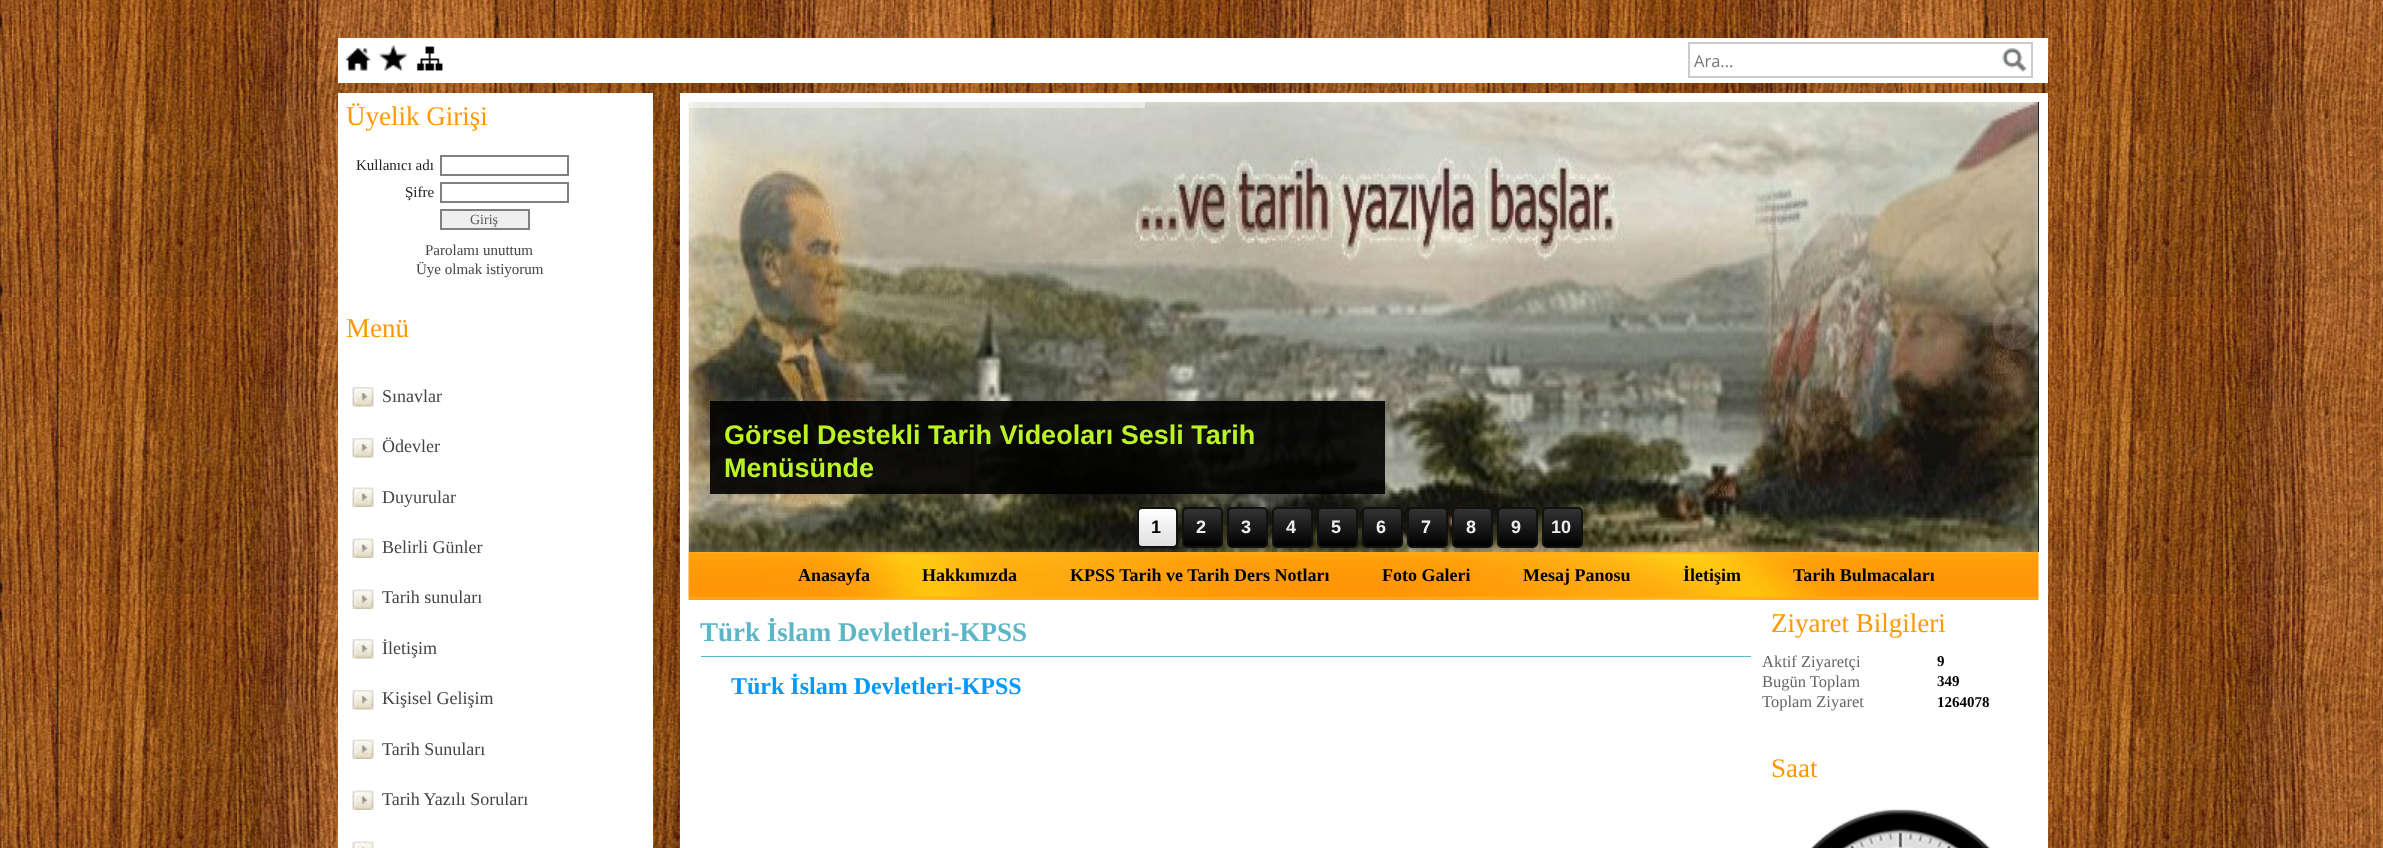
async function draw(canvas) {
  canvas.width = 2383
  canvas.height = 848
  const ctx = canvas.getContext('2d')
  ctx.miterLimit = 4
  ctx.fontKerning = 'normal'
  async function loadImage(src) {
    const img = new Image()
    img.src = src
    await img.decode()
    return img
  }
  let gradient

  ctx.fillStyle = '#fff'
  ctx.fillRect(0, 0, 2383, 848)
  ctx.drawImage(await loadImage('image0.png'), 0, 0, 2383, 848)
  ctx.fillRect(338, 38, 1710, 45)
  ctx.drawImage(await loadImage('image1.png'), 345, 47, 26, 24)
  ctx.drawImage(await loadImage('image2.png'), 379, 45, 29, 26)
  ctx.drawImage(await loadImage('image3.png'), 416, 46, 27, 25)
  ctx.strokeStyle = '#ccc'
  ctx.lineWidth = 2
  ctx.strokeRect(1689, 43, 343, 34)
  ctx.font = '16.5px Open Sans'
  ctx.fillStyle = '#757575'
  ctx.fillText('Ara...', 1694, 67)
  ctx.drawImage(await loadImage('image4.png'), 2002, 48, 25, 24)
  ctx.fillStyle = '#fff'
  ctx.fillRect(338, 93, 315, 755)
  ctx.font = '27px Liberation Serif'
  ctx.fillStyle = '#ff9800'
  ctx.fillText('Üyelik Girişi', 346, 125)
  ctx.font = '15px Liberation Serif'
  ctx.fillStyle = '#222'
  ctx.fillText('Kullanıcı adı', 356, 170)
  ctx.strokeStyle = '#808080'
  ctx.strokeRect(441, 156, 127, 19)
  ctx.fillText('Şifre', 405, 197)
  ctx.strokeRect(441, 183, 127, 19)
  ctx.fillStyle = '#efefef'
  ctx.beginPath()
  ctx.rect(441, 210, 88, 19)
  ctx.fill()
  ctx.stroke()
  ctx.font = '14px Liberation Serif'
  ctx.fillStyle = '#585858'
  ctx.fillText('Giriş', 470, 224)
  ctx.font = '15px Liberation Serif'
  ctx.fillStyle = '#444'
  ctx.fillText('Parolamı unuttum', 425, 255)
  ctx.fillText('Üye olmak istiyorum', 416, 274)
  ctx.font = '27px Liberation Serif'
  ctx.fillStyle = '#ff9800'
  ctx.fillText('Menü', 346, 337)
  ctx.drawImage(await loadImage('image5.png'), 352, 387, 22, 20)
  ctx.font = '18px Liberation Serif'
  ctx.fillStyle = '#444'
  ctx.fillText('Sınavlar', 382, 402)
  ctx.drawImage(await loadImage('image5.png'), 352, 438, 22, 20)
  ctx.fillText('Ödevler', 382, 452)
  ctx.drawImage(await loadImage('image6.png'), 352, 487, 22, 20)
  ctx.fillText('Duyurular', 382, 503)
  ctx.drawImage(await loadImage('image6.png'), 352, 538, 22, 20)
  ctx.fillText('Belirli Günler', 382, 553)
  ctx.drawImage(await loadImage('image6.png'), 352, 589, 22, 20)
  ctx.fillText('Tarih sunuları', 382, 603)
  ctx.drawImage(await loadImage('image5.png'), 352, 639, 22, 20)
  ctx.fillText('İletişim', 382, 654)
  ctx.drawImage(await loadImage('image5.png'), 352, 690, 22, 20)
  ctx.fillText('Kişisel Gelişim', 382, 704)
  ctx.drawImage(await loadImage('image6.png'), 352, 739, 22, 20)
  ctx.fillText('Tarih Sunuları', 382, 755)
  ctx.drawImage(await loadImage('image6.png'), 352, 790, 22, 20)
  ctx.fillText('Tarih Yazılı Soruları', 382, 805)
  ctx.drawImage(await loadImage('image7.png'), 352, 841, 22, 7)
  ctx.fillStyle = '#fff'
  ctx.fillRect(680, 93, 1368, 755)
  ctx.fillStyle = '#000'
  ctx.fillRect(2038, 102, 1, 450)
  ctx.drawImage(await loadImage('image8.png'), 688, 102, 1351, 450)
  ctx.fillStyle = '#ffffff80'
  ctx.fillRect(689, 102, 456, 6)
  ctx.drawImage(await loadImage('image9.png'), 690, 304, 45, 46)
  ctx.drawImage(await loadImage('image10.png'), 1992, 304, 45, 46)
  ctx.fillStyle = '#000000e6'
  ctx.fillRect(710, 401, 675, 93)
  ctx.font = 'bold 27px Liberation Sans'
  ctx.fillStyle = '#baf425'
  ctx.fillText('Görsel Destekli Tarih Videoları Sesli Tarih', 724, 444)
  ctx.fillText('Menüsünde', 724, 477)
  gradient = ctx.createLinearGradient(1139, 509, 1139, 546)
  gradient.addColorStop(0, '#fff')
  gradient.addColorStop(1, '#e0e0e0')
  ctx.fillStyle = gradient
  ctx.fillRect(1139, 509, 37, 37)
  ctx.beginPath()
  ctx.roundRect(1138, 508, 39, 39, 4)
  ctx.strokeStyle = '#111'
  ctx.stroke()
  ctx.font = 'bold 18px Liberation Sans'
  ctx.fillStyle = '#000'
  ctx.fillText('1', 1151, 533)
  gradient = ctx.createLinearGradient(1184, 509, 1184, 546)
  gradient.addColorStop(0, '#333')
  gradient.addColorStop(1, '#000')
  ctx.fillStyle = gradient
  ctx.fillRect(1184, 509, 37, 37)
  ctx.beginPath()
  ctx.roundRect(1183, 508, 39, 39, 4)
  ctx.stroke()
  ctx.fillStyle = '#eee'
  ctx.fillText('2', 1196, 533)
  gradient = ctx.createLinearGradient(1229, 509, 1229, 546)
  gradient.addColorStop(0, '#333')
  gradient.addColorStop(1, '#000')
  ctx.fillStyle = gradient
  ctx.fillRect(1229, 509, 37, 37)
  ctx.beginPath()
  ctx.roundRect(1228, 508, 39, 39, 4)
  ctx.stroke()
  ctx.fillStyle = '#eee'
  ctx.fillText('3', 1241, 533)
  gradient = ctx.createLinearGradient(1274, 509, 1274, 546)
  gradient.addColorStop(0, '#333')
  gradient.addColorStop(1, '#000')
  ctx.fillStyle = gradient
  ctx.fillRect(1274, 509, 37, 37)
  ctx.beginPath()
  ctx.roundRect(1273, 508, 39, 39, 4)
  ctx.stroke()
  ctx.fillStyle = '#eee'
  ctx.fillText('4', 1286, 533)
  gradient = ctx.createLinearGradient(1319, 509, 1319, 546)
  gradient.addColorStop(0, '#333')
  gradient.addColorStop(1, '#000')
  ctx.fillStyle = gradient
  ctx.fillRect(1319, 509, 37, 37)
  ctx.beginPath()
  ctx.roundRect(1318, 508, 39, 39, 4)
  ctx.stroke()
  ctx.fillStyle = '#eee'
  ctx.fillText('5', 1331, 533)
  gradient = ctx.createLinearGradient(1364, 509, 1364, 546)
  gradient.addColorStop(0, '#333')
  gradient.addColorStop(1, '#000')
  ctx.fillStyle = gradient
  ctx.fillRect(1364, 509, 37, 37)
  ctx.beginPath()
  ctx.roundRect(1363, 508, 39, 39, 4)
  ctx.stroke()
  ctx.fillStyle = '#eee'
  ctx.fillText('6', 1376, 533)
  gradient = ctx.createLinearGradient(1409, 509, 1409, 546)
  gradient.addColorStop(0, '#333')
  gradient.addColorStop(1, '#000')
  ctx.fillStyle = gradient
  ctx.fillRect(1409, 509, 37, 37)
  ctx.beginPath()
  ctx.roundRect(1408, 508, 39, 39, 4)
  ctx.stroke()
  ctx.fillStyle = '#eee'
  ctx.fillText('7', 1421, 533)
  gradient = ctx.createLinearGradient(1454, 509, 1454, 546)
  gradient.addColorStop(0, '#333')
  gradient.addColorStop(1, '#000')
  ctx.fillStyle = gradient
  ctx.fillRect(1454, 509, 37, 37)
  ctx.beginPath()
  ctx.roundRect(1453, 508, 39, 39, 4)
  ctx.stroke()
  ctx.fillStyle = '#eee'
  ctx.fillText('8', 1466, 533)
  gradient = ctx.createLinearGradient(1499, 509, 1499, 546)
  gradient.addColorStop(0, '#333')
  gradient.addColorStop(1, '#000')
  ctx.fillStyle = gradient
  ctx.fillRect(1499, 509, 37, 37)
  ctx.beginPath()
  ctx.roundRect(1498, 508, 39, 39, 4)
  ctx.stroke()
  ctx.fillStyle = '#eee'
  ctx.fillText('9', 1511, 533)
  gradient = ctx.createLinearGradient(1544, 509, 1544, 546)
  gradient.addColorStop(0, '#333')
  gradient.addColorStop(1, '#000')
  ctx.fillStyle = gradient
  ctx.fillRect(1544, 509, 37, 37)
  ctx.beginPath()
  ctx.roundRect(1543, 508, 39, 39, 4)
  ctx.stroke()
  ctx.fillStyle = '#eee'
  ctx.fillText('10', 1551, 533)
  ctx.drawImage(await loadImage('image11.png'), 688, 552, 1351, 48)
  ctx.font = 'bold 18px Liberation Serif'
  ctx.fillStyle = '#000'
  ctx.fillText('Anasayfa', 798, 581)
  ctx.fillText('Hakkımızda', 922, 581)
  ctx.fillText('KPSS Tarih ve Tarih Ders Notları', 1070, 581)
  ctx.fillText('Foto Galeri', 1382, 581)
  ctx.fillText('Mesaj Panosu', 1523, 581)
  ctx.fillText('İletişim', 1683, 581)
  ctx.fillText('Tarih Bulmacaları', 1793, 581)
  ctx.fillStyle = '#5db6c5'
  ctx.fillRect(701, 656, 1050, 1)
  ctx.font = 'bold 27px Liberation Serif'
  ctx.fillText('Türk İslam Devletleri-KPSS', 700, 641)
  ctx.font = 'bold 24px Liberation Serif'
  ctx.fillStyle = '#09f'
  ctx.fillText('Türk İslam Devletleri-KPSS', 731, 694)
  ctx.font = '27px Liberation Serif'
  ctx.fillStyle = '#ff9800'
  ctx.fillText('Ziyaret Bilgileri', 1771, 632)
  ctx.font = '16.5px Liberation Serif'
  ctx.fillStyle = '#666'
  ctx.fillText('Aktif Ziyaretçi', 1762, 667)
  ctx.font = 'bold 15px Liberation Serif'
  ctx.fillStyle = '#000'
  ctx.fillText('9', 1937, 666)
  ctx.font = '16.5px Liberation Serif'
  ctx.fillStyle = '#666'
  ctx.fillText('Bugün Toplam', 1762, 687)
  ctx.font = 'bold 15px Liberation Serif'
  ctx.fillStyle = '#000'
  ctx.fillText('349', 1937, 686)
  ctx.font = '16.5px Liberation Serif'
  ctx.fillStyle = '#666'
  ctx.fillText('Toplam Ziyaret', 1762, 707)
  ctx.font = 'bold 15px Liberation Serif'
  ctx.fillStyle = '#000'
  ctx.fillText('1264078', 1937, 707)
  ctx.font = '27px Liberation Serif'
  ctx.fillStyle = '#ff9800'
  ctx.fillText('Saat', 1771, 777)
  ctx.drawImage(await loadImage('image12.png'), 1810, 809, 181, 39)
}

draw(document.querySelector('canvas'))
